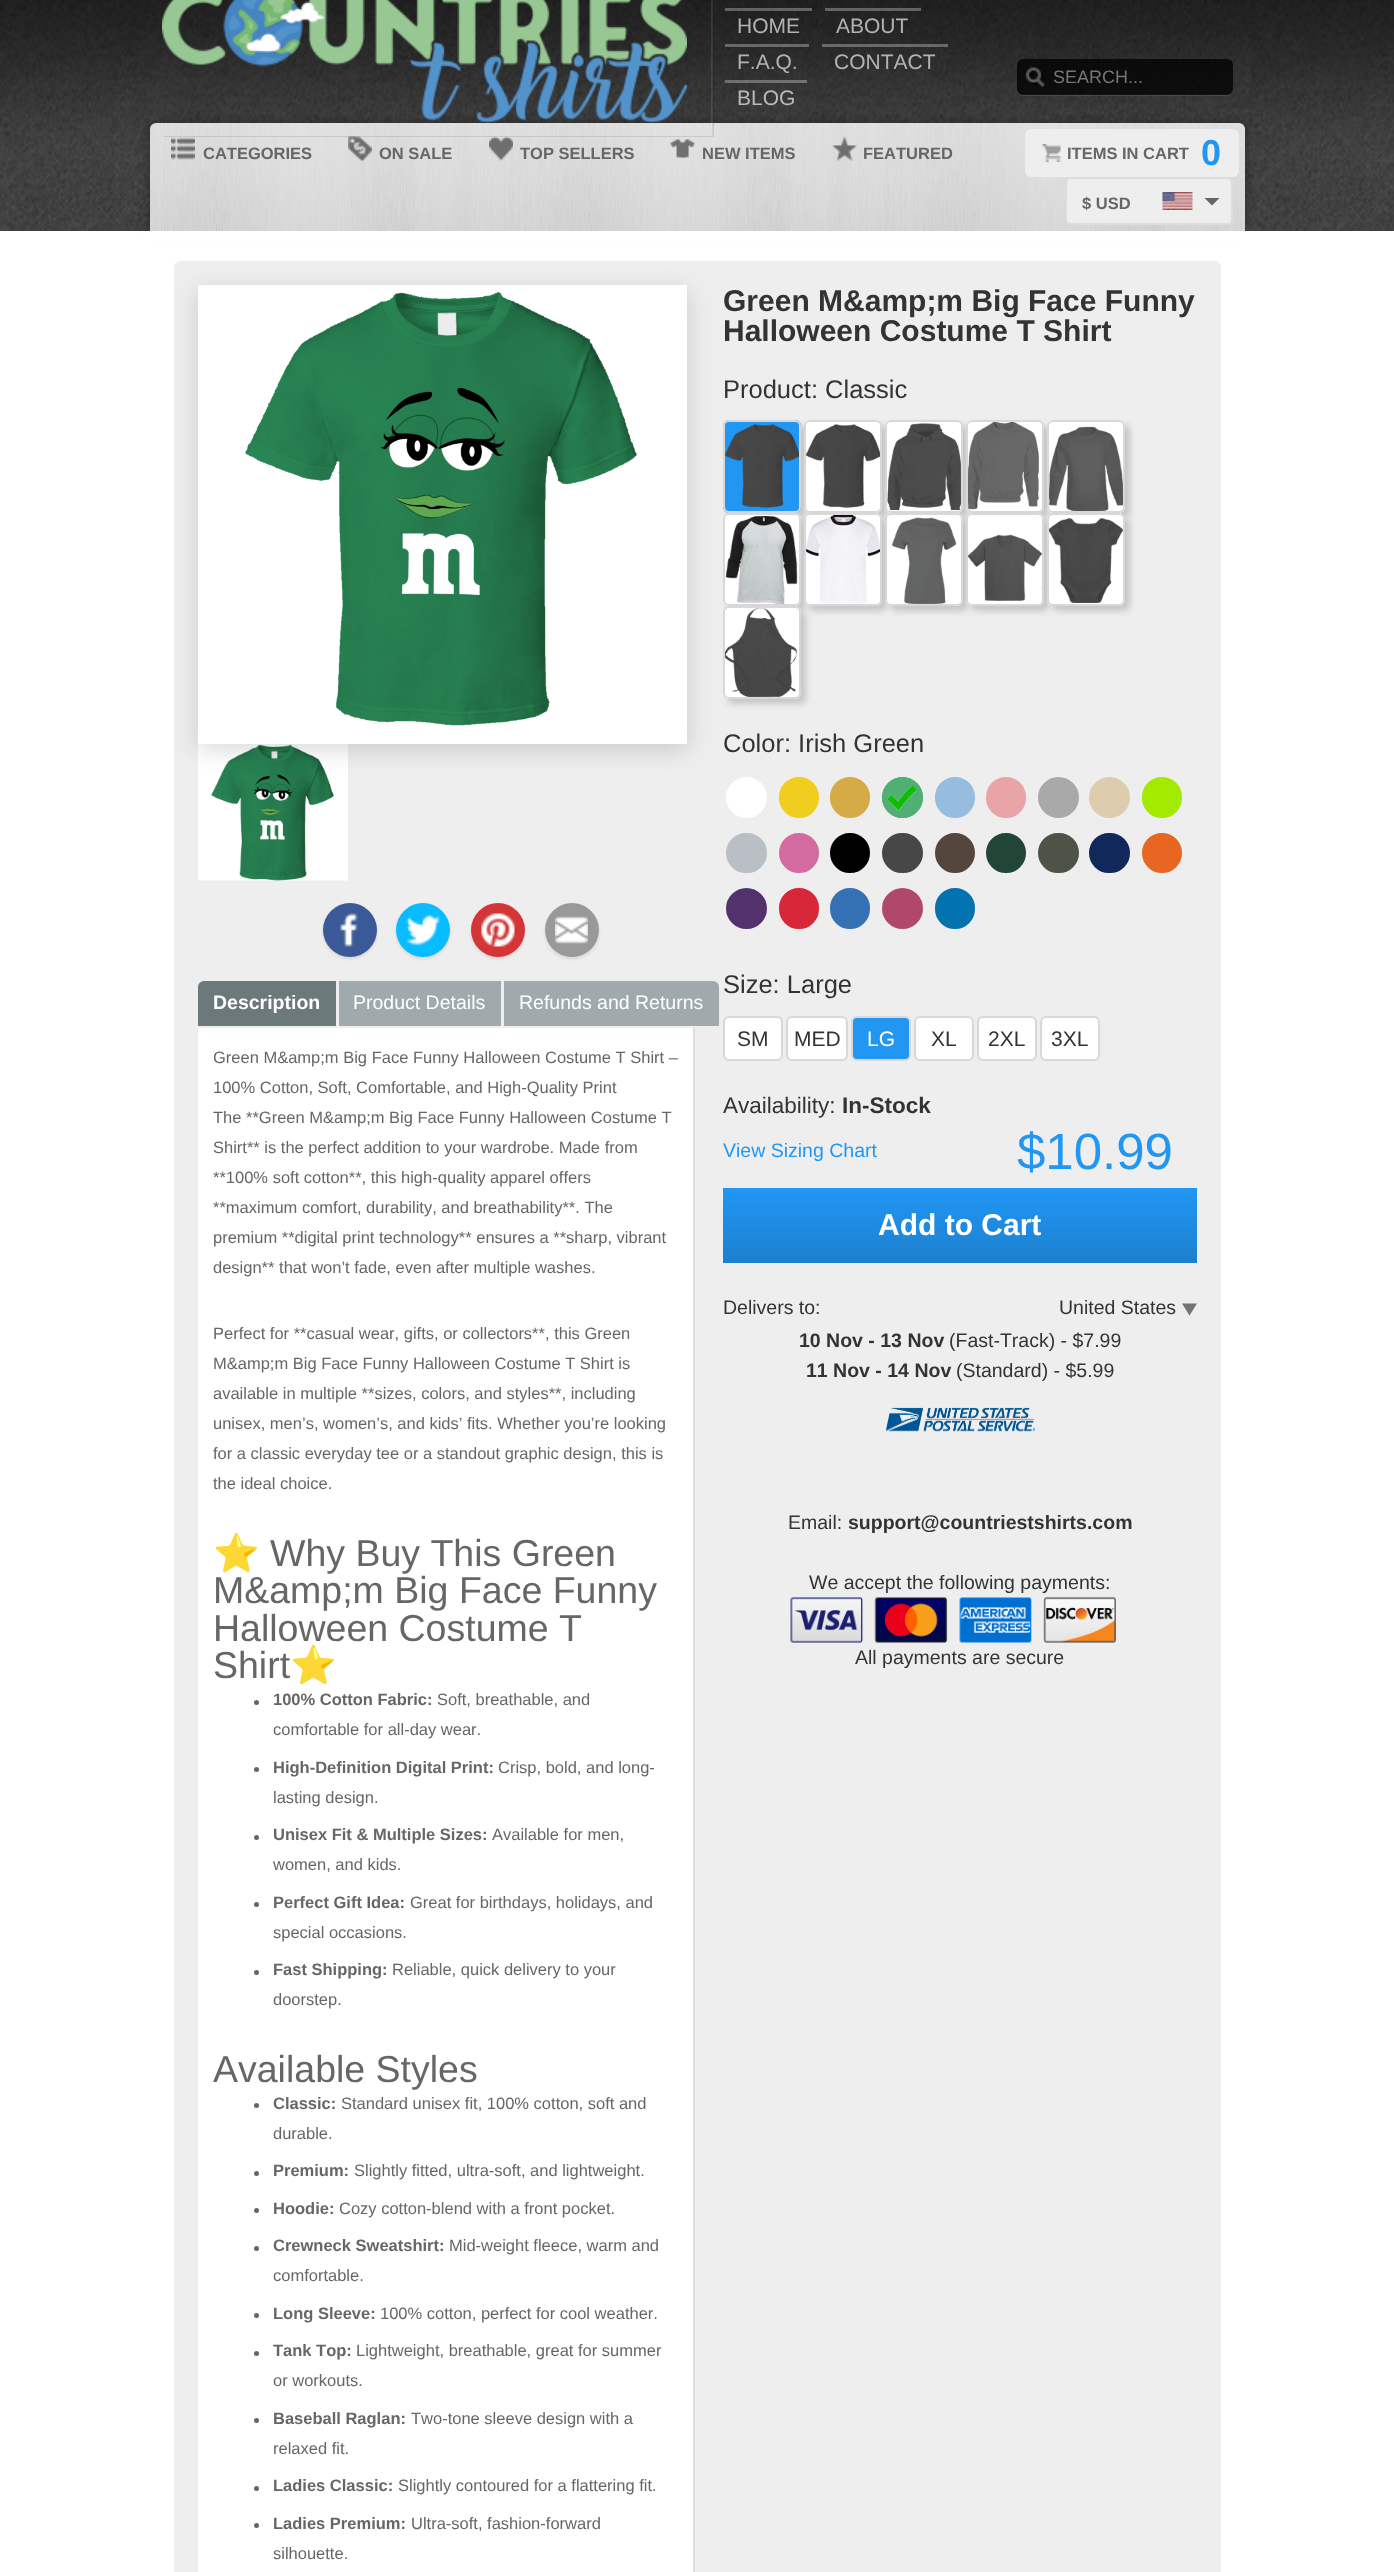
async function draw(canvas) {
  canvas.width = 1394
  canvas.height = 2572
  const ctx = canvas.getContext('2d')
  ctx.miterLimit = 4
  ctx.fontKerning = 'none'
  async function loadImage(src) {
    const img = new Image()
    img.src = src
    await img.decode()
    return img
  }
  let gradient

  ctx.fillStyle = '#fff'
  ctx.fillRect(0, 0, 1394, 2572)
  ctx.drawImage(await loadImage('image0.png'), 0, 0, 1394, 231)
  ctx.fillStyle = '#00000059'
  ctx.filter = 'blur(6px)'
  ctx.beginPath()
  ctx.roundRect(150, 123, 1095, 108, 6)
  ctx.fill()
  ctx.filter = 'none'
  ctx.drawImage(await loadImage('image3.png'), 150, 123, 1095, 108)
  ctx.fillStyle = '#0000001a'
  ctx.beginPath()
  ctx.moveTo(164, 136)
  ctx.lineTo(164, 137)
  ctx.lineTo(714, 137)
  ctx.lineTo(714, -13)
  ctx.lineTo(712, -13)
  ctx.lineTo(712, 136)
  ctx.closePath()
  ctx.fill()
  ctx.fillStyle = '#ffffff1a'
  ctx.fillRect(711, 0, 2, 137)
  ctx.drawImage(await loadImage('image1.png'), 162, 0, 525, 124)
  ctx.fillStyle = '#ffffff4d'
  ctx.fillRect(725, 8, 87, 3)
  ctx.font = '21px Liberation Sans'
  ctx.fillStyle = '#b2b2b2'
  ctx.fillText('HOME', 737, 33)
  ctx.fillStyle = '#ffffff4d'
  ctx.fillRect(825, 8, 96, 3)
  ctx.fillStyle = '#b2b2b2'
  ctx.fillText('ABOUT', 836, 33)
  ctx.fillStyle = '#ffffff4d'
  ctx.fillRect(725, 44, 84, 3)
  ctx.fillStyle = '#b2b2b2'
  ctx.fillText('F.A.Q.', 737, 69)
  ctx.fillStyle = '#ffffff4d'
  ctx.fillRect(822, 44, 126, 3)
  ctx.fillStyle = '#b2b2b2'
  ctx.fillText('CONTACT', 834, 69)
  ctx.fillStyle = '#ffffff4d'
  ctx.fillRect(725, 80, 82, 3)
  ctx.fillStyle = '#b9b9b9'
  ctx.fillText('BLOG', 737, 105)
  ctx.fillStyle = '#ffffff1a'
  ctx.beginPath()
  ctx.moveTo(1017, 88)
  ctx.lineTo(1017, 90)
  ctx.bezierCurveTo(1017, 93, 1020, 96, 1023, 96)
  ctx.lineTo(1227, 96)
  ctx.bezierCurveTo(1230, 96, 1233, 93, 1233, 90)
  ctx.lineTo(1233, 88)
  ctx.bezierCurveTo(1233, 92, 1230, 94, 1227, 94)
  ctx.lineTo(1023, 94)
  ctx.bezierCurveTo(1020, 94, 1017, 92, 1017, 88)
  ctx.closePath()
  ctx.fill()
  ctx.fillStyle = '#000000bf'
  ctx.beginPath()
  ctx.roundRect(1017, 59, 216, 36, 6)
  ctx.fill()
  ctx.drawImage(await loadImage('image2.png'), 1025, 67, 21, 21)
  ctx.font = '18px Liberation Sans'
  ctx.fillStyle = '#757575'
  ctx.fillText('SEARCH...', 1053, 83)
  ctx.drawImage(await loadImage('image4.png'), 171, 137, 24, 23)
  ctx.font = 'bold 16.5px Liberation Sans'
  ctx.fillStyle = '#666'
  ctx.fillText('CATEGORIES', 203, 159)
  ctx.drawImage(await loadImage('image5.png'), 348, 136, 24, 25)
  ctx.fillText('ON SALE', 379, 159)
  ctx.drawImage(await loadImage('image6.png'), 489, 136, 24, 25)
  ctx.fillText('TOP SELLERS', 520, 159)
  ctx.drawImage(await loadImage('image7.png'), 670, 139, 25, 19)
  ctx.fillText('NEW ITEMS', 702, 159)
  ctx.drawImage(await loadImage('image8.png'), 832, 136, 25, 25)
  ctx.fillText('FEATURED', 863, 159)
  ctx.fillStyle = '#eee'
  ctx.beginPath()
  ctx.roundRect(1025, 129, 214, 48, 6)
  ctx.fill()
  ctx.drawImage(await loadImage('image9.png'), 1042, 144, 19, 18)
  ctx.fillStyle = '#666'
  ctx.fillText('ITEMS IN CART', 1067, 159)
  ctx.font = 'bold 36px Liberation Sans'
  ctx.fillStyle = '#2196f3'
  ctx.fillText('0', 1201, 165)
  ctx.fillStyle = '#eee'
  ctx.beginPath()
  ctx.roundRect(1066, 178, 166, 46, 5)
  ctx.fill()
  ctx.strokeStyle = '#ddd'
  ctx.lineWidth = 2
  ctx.stroke()
  ctx.font = 'bold 16.5px Liberation Sans'
  ctx.fillStyle = '#666'
  ctx.fillText('$ USD', 1082, 209)
  ctx.drawImage(await loadImage('image10.png'), 1162, 192, 31, 18)
  ctx.beginPath()
  ctx.moveTo(1204.5, 198)
  ctx.lineTo(1219.5, 198)
  ctx.lineTo(1212, 205.5)
  ctx.closePath()
  ctx.fill()
  ctx.fillStyle = '#fff'
  ctx.fillRect(142, 231, 1111, 11)
  ctx.fillStyle = '#eee'
  ctx.beginPath()
  ctx.roundRect(174, 261, 1047, 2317, 6)
  ctx.fill()
  ctx.drawImage(await loadImage('image12.png'), 198, 744, 150, 137)
  ctx.fillStyle = '#c5c5c5'
  ctx.filter = 'blur(3px)'
  ctx.beginPath()
  ctx.roundRect(728, 425, 78, 93, 6)
  ctx.fill()
  ctx.filter = 'none'
  ctx.fillStyle = '#2196f3'
  ctx.beginPath()
  ctx.roundRect(723, 420, 78, 93, 6)
  ctx.fill()
  ctx.drawImage(await loadImage('image17.png'), 725, 424, 74, 84)
  ctx.beginPath()
  ctx.roundRect(724, 421, 76, 91, 5)
  ctx.strokeStyle = '#d8d8d8'
  ctx.stroke()
  ctx.fillStyle = '#c5c5c5'
  ctx.filter = 'blur(3px)'
  ctx.beginPath()
  ctx.roundRect(809, 425, 78, 93, 6)
  ctx.fill()
  ctx.filter = 'none'
  ctx.fillStyle = '#fff'
  ctx.beginPath()
  ctx.roundRect(804, 420, 78, 93, 6)
  ctx.fill()
  ctx.drawImage(await loadImage('image18.png'), 806, 424, 74, 84)
  ctx.beginPath()
  ctx.roundRect(805, 421, 76, 91, 5)
  ctx.stroke()
  ctx.fillStyle = '#c5c5c5'
  ctx.filter = 'blur(3px)'
  ctx.beginPath()
  ctx.roundRect(728, 518, 78, 93, 6)
  ctx.fill()
  ctx.filter = 'none'
  ctx.fillStyle = '#fff'
  ctx.beginPath()
  ctx.roundRect(723, 513, 78, 93, 6)
  ctx.fill()
  ctx.drawImage(await loadImage('image22.png'), 726, 516, 72, 88)
  ctx.beginPath()
  ctx.roundRect(724, 514, 76, 91, 5)
  ctx.stroke()
  ctx.fillStyle = '#c5c5c5'
  ctx.filter = 'blur(3px)'
  ctx.beginPath()
  ctx.roundRect(890, 425, 78, 93, 6)
  ctx.fill()
  ctx.filter = 'none'
  ctx.fillStyle = '#fff'
  ctx.beginPath()
  ctx.roundRect(885, 420, 78, 93, 6)
  ctx.fill()
  ctx.drawImage(await loadImage('image19.png'), 887, 423, 74, 87)
  ctx.beginPath()
  ctx.roundRect(886, 421, 76, 91, 5)
  ctx.stroke()
  ctx.fillStyle = '#c5c5c5'
  ctx.filter = 'blur(3px)'
  ctx.beginPath()
  ctx.roundRect(809, 518, 78, 93, 6)
  ctx.fill()
  ctx.filter = 'none'
  ctx.fillStyle = '#fff'
  ctx.beginPath()
  ctx.roundRect(804, 513, 78, 93, 6)
  ctx.fill()
  ctx.drawImage(await loadImage('image23.png'), 806, 515, 74, 89)
  ctx.beginPath()
  ctx.roundRect(805, 514, 76, 91, 5)
  ctx.stroke()
  ctx.fillStyle = '#c5c5c5'
  ctx.filter = 'blur(3px)'
  ctx.beginPath()
  ctx.roundRect(728, 611, 78, 93, 6)
  ctx.fill()
  ctx.filter = 'none'
  ctx.fillStyle = '#fff'
  ctx.beginPath()
  ctx.roundRect(723, 606, 78, 93, 6)
  ctx.fill()
  ctx.drawImage(await loadImage('image27.png'), 725, 608, 73, 89)
  ctx.beginPath()
  ctx.roundRect(724, 607, 76, 91, 5)
  ctx.stroke()
  ctx.fillStyle = '#00000026'
  ctx.filter = 'blur(12px)'
  ctx.beginPath()
  ctx.rect(198, 291, 489, 459)
  ctx.fill()
  ctx.filter = 'none'
  ctx.fillStyle = '#fff'
  ctx.fillRect(198, 285, 489, 459)
  ctx.drawImage(await loadImage('image11.png'), 245, 291, 392, 435)
  ctx.fillStyle = '#0000001a'
  ctx.filter = 'blur(1.5px)'
  ctx.beginPath()
  ctx.roundRect(323, 905, 54, 54, 27)
  ctx.fill()
  ctx.filter = 'none'
  ctx.fillStyle = '#3b5997'
  ctx.beginPath()
  ctx.arc(350, 930, 27, 0, 2 * Math.PI)
  ctx.fill()
  ctx.drawImage(await loadImage('image13.png'), 340, 913, 18, 34)
  ctx.fillStyle = '#0000001a'
  ctx.filter = 'blur(1.5px)'
  ctx.beginPath()
  ctx.roundRect(396, 905, 54, 54, 27)
  ctx.fill()
  ctx.filter = 'none'
  ctx.fillStyle = '#09bbff'
  ctx.beginPath()
  ctx.arc(423, 930, 27, 0, 2 * Math.PI)
  ctx.fill()
  ctx.drawImage(await loadImage('image14.png'), 406, 915, 34, 31)
  ctx.fillStyle = '#0000001a'
  ctx.filter = 'blur(1.5px)'
  ctx.beginPath()
  ctx.roundRect(471, 905, 54, 54, 27)
  ctx.fill()
  ctx.filter = 'none'
  ctx.fillStyle = '#d43638'
  ctx.beginPath()
  ctx.arc(498, 930, 27, 0, 2 * Math.PI)
  ctx.fill()
  ctx.drawImage(await loadImage('image15.png'), 481, 913, 34, 34)
  ctx.fillStyle = '#0000001a'
  ctx.filter = 'blur(1.5px)'
  ctx.beginPath()
  ctx.roundRect(545, 905, 54, 54, 27)
  ctx.fill()
  ctx.filter = 'none'
  ctx.fillStyle = '#999'
  ctx.beginPath()
  ctx.arc(572, 930, 27, 0, 2 * Math.PI)
  ctx.fill()
  ctx.drawImage(await loadImage('image16.png'), 555, 916, 33, 28)
  ctx.fillStyle = '#6b797b'
  ctx.beginPath()
  ctx.roundRect(198, 981, 138, 45, [6, 0, 0, 0])
  ctx.fill()
  ctx.font = 'bold 19.5px Liberation Sans'
  ctx.fillStyle = '#fff'
  ctx.fillText('Description', 213, 1009)
  ctx.fillStyle = '#a0aaac'
  ctx.fillRect(339, 981, 162, 45)
  ctx.font = '19.5px Liberation Sans'
  ctx.fillStyle = '#fff'
  ctx.fillText('Product Details', 353, 1009)
  ctx.fillStyle = '#a0aaac'
  ctx.beginPath()
  ctx.roundRect(504, 981, 215, 45, [0, 6, 0, 0])
  ctx.fill()
  ctx.fillStyle = '#fff'
  ctx.fillText('Refunds and Returns', 519, 1009)
  ctx.fillRect(198, 1028, 495, 1544)
  ctx.fillStyle = '#ddd'
  ctx.fillRect(693, 1028, 2, 1544)
  ctx.font = '16.5px Liberation Sans'
  ctx.fillStyle = '#666'
  ctx.fillText('Green M&amp;m Big Face Funny Halloween Costume T Shirt –', 213, 1063)
  ctx.fillText('100% Cotton, Soft, Comfortable, and High-Quality Print', 213, 1093)
  ctx.fillText('The **Green M&amp;m Big Face Funny Halloween Costume T', 213, 1123)
  ctx.fillText('Shirt** is the perfect addition to your wardrobe. Made from', 213, 1153)
  ctx.fillText('**100% soft cotton**, this high-quality apparel offers', 213, 1183)
  ctx.fillText('**maximum comfort, durability, and breathability**. The', 213, 1213)
  ctx.fillText('premium **digital print technology** ensures a **sharp, vibrant', 213, 1243)
  ctx.fillText('design** that won’t fade, even after multiple washes.', 213, 1273)
  ctx.fillText('Perfect for **casual wear, gifts, or collectors**, this Green', 213, 1339)
  ctx.fillText('M&amp;m Big Face Funny Halloween Costume T Shirt is', 213, 1369)
  ctx.fillText('available in multiple **sizes, colors, and styles**, including', 213, 1399)
  ctx.fillText('unisex, men’s, women’s, and kids’ fits. Whether you’re looking', 213, 1429)
  ctx.fillText('for a classic everyday tee or a standout graphic design, this is', 213, 1459)
  ctx.fillText('the ideal choice.', 213, 1489)
  ctx.font = '37.5px Noto Color Emoji'
  ctx.fillText('⭐', 213, 1566)
  ctx.font = '37.5px Liberation Sans'
  ctx.fillText('Why Buy This Green', 270, 1566)
  ctx.fillText('M&amp;m Big Face Funny', 213, 1603)
  ctx.fillText('Halloween Costume T', 213, 1641)
  ctx.fillText('Shirt', 213, 1678)
  ctx.font = '37.5px Noto Color Emoji'
  ctx.fillText('⭐', 290, 1678)
  ctx.beginPath()
  ctx.arc(256.5, 1702.5, 2.5, 0, 2 * Math.PI)
  ctx.fill()
  ctx.font = 'bold 16.5px Liberation Sans'
  ctx.fillText('100% Cotton Fabric:', 273, 1705)
  ctx.font = '16.5px Liberation Sans'
  ctx.fillText('Soft, breathable, and', 437, 1705)
  ctx.fillText('comfortable for all-day wear.', 273, 1735)
  ctx.beginPath()
  ctx.arc(256.5, 1769.5, 2.5, 0, 2 * Math.PI)
  ctx.fill()
  ctx.font = 'bold 16.5px Liberation Sans'
  ctx.fillText('High-Definition Digital Print:', 273, 1773)
  ctx.font = '16.5px Liberation Sans'
  ctx.fillText('Crisp, bold, and long-', 498, 1773)
  ctx.fillText('lasting design.', 273, 1803)
  ctx.beginPath()
  ctx.arc(256.5, 1837.5, 2.5, 0, 2 * Math.PI)
  ctx.fill()
  ctx.font = 'bold 16.5px Liberation Sans'
  ctx.fillText('Unisex Fit & Multiple Sizes:', 273, 1840)
  ctx.font = '16.5px Liberation Sans'
  ctx.fillText('Available for men,', 492, 1840)
  ctx.fillText('women, and kids.', 273, 1870)
  ctx.beginPath()
  ctx.arc(256.5, 1904.5, 2.5, 0, 2 * Math.PI)
  ctx.fill()
  ctx.font = 'bold 16.5px Liberation Sans'
  ctx.fillText('Perfect Gift Idea:', 273, 1908)
  ctx.font = '16.5px Liberation Sans'
  ctx.fillText('Great for birthdays, holidays, and', 410, 1908)
  ctx.fillText('special occasions.', 273, 1938)
  ctx.beginPath()
  ctx.arc(256.5, 1972.5, 2.5, 0, 2 * Math.PI)
  ctx.fill()
  ctx.font = 'bold 16.5px Liberation Sans'
  ctx.fillText('Fast Shipping:', 273, 1975)
  ctx.font = '16.5px Liberation Sans'
  ctx.fillText('Reliable, quick delivery to your', 392, 1975)
  ctx.fillText('doorstep.', 273, 2005)
  ctx.font = '37.5px Liberation Sans'
  ctx.fillText('Available Styles', 213, 2082)
  ctx.beginPath()
  ctx.arc(256.5, 2105.5, 2.5, 0, 2 * Math.PI)
  ctx.fill()
  ctx.font = 'bold 16.5px Liberation Sans'
  ctx.fillText('Classic:', 273, 2109)
  ctx.font = '16.5px Liberation Sans'
  ctx.fillText('Standard unisex fit, 100% cotton, soft and', 341, 2109)
  ctx.fillText('durable.', 273, 2139)
  ctx.beginPath()
  ctx.arc(256.5, 2173.5, 2.5, 0, 2 * Math.PI)
  ctx.fill()
  ctx.font = 'bold 16.5px Liberation Sans'
  ctx.fillText('Premium:', 273, 2176)
  ctx.font = '16.5px Liberation Sans'
  ctx.fillText('Slightly fitted, ultra-soft, and lightweight.', 354, 2176)
  ctx.beginPath()
  ctx.arc(256.5, 2210.5, 2.5, 0, 2 * Math.PI)
  ctx.fill()
  ctx.font = 'bold 16.5px Liberation Sans'
  ctx.fillText('Hoodie:', 273, 2214)
  ctx.font = '16.5px Liberation Sans'
  ctx.fillText('Cozy cotton-blend with a front pocket.', 339, 2214)
  ctx.beginPath()
  ctx.arc(256.5, 2248.5, 2.5, 0, 2 * Math.PI)
  ctx.fill()
  ctx.font = 'bold 16.5px Liberation Sans'
  ctx.fillText('Crewneck Sweatshirt:', 273, 2251)
  ctx.font = '16.5px Liberation Sans'
  ctx.fillText('Mid-weight fleece, warm and', 449, 2251)
  ctx.fillText('comfortable.', 273, 2281)
  ctx.beginPath()
  ctx.arc(256.5, 2315.5, 2.5, 0, 2 * Math.PI)
  ctx.fill()
  ctx.font = 'bold 16.5px Liberation Sans'
  ctx.fillText('Long Sleeve:', 273, 2319)
  ctx.font = '16.5px Liberation Sans'
  ctx.fillText('100% cotton, perfect for cool weather.', 380, 2319)
  ctx.beginPath()
  ctx.arc(256.5, 2353.5, 2.5, 0, 2 * Math.PI)
  ctx.fill()
  ctx.font = 'bold 16.5px Liberation Sans'
  ctx.fillText('Tank Top:', 273, 2356)
  ctx.font = '16.5px Liberation Sans'
  ctx.fillText('Lightweight, breathable, great for summer', 356, 2356)
  ctx.fillText('or workouts.', 273, 2386)
  ctx.beginPath()
  ctx.arc(256.5, 2420.5, 2.5, 0, 2 * Math.PI)
  ctx.fill()
  ctx.font = 'bold 16.5px Liberation Sans'
  ctx.fillText('Baseball Raglan:', 273, 2424)
  ctx.font = '16.5px Liberation Sans'
  ctx.fillText('Two-tone sleeve design with a', 411, 2424)
  ctx.fillText('relaxed fit.', 273, 2454)
  ctx.beginPath()
  ctx.arc(256.5, 2488.5, 2.5, 0, 2 * Math.PI)
  ctx.fill()
  ctx.font = 'bold 16.5px Liberation Sans'
  ctx.fillText('Ladies Classic:', 273, 2491)
  ctx.font = '16.5px Liberation Sans'
  ctx.fillText('Slightly contoured for a flattering fit.', 398, 2491)
  ctx.beginPath()
  ctx.arc(256.5, 2525.5, 2.5, 0, 2 * Math.PI)
  ctx.fill()
  ctx.font = 'bold 16.5px Liberation Sans'
  ctx.fillText('Ladies Premium:', 273, 2529)
  ctx.font = '16.5px Liberation Sans'
  ctx.fillText('Ultra-soft, fashion-forward', 411, 2529)
  ctx.fillText('silhouette.', 273, 2559)
  ctx.font = 'bold 30px Liberation Sans'
  ctx.fillStyle = '#333'
  ctx.fillText('Green M&amp;m Big Face Funny', 723, 311)
  ctx.fillText('Halloween Costume T Shirt', 723, 341)
  ctx.font = '25.5px Liberation Sans'
  ctx.fillText('Product: Classic', 723, 398)
  ctx.fillStyle = '#c5c5c5'
  ctx.filter = 'blur(3px)'
  ctx.beginPath()
  ctx.roundRect(971, 425, 78, 93, 6)
  ctx.fill()
  ctx.filter = 'none'
  ctx.fillStyle = '#fff'
  ctx.beginPath()
  ctx.roundRect(966, 420, 78, 93, 6)
  ctx.fill()
  ctx.drawImage(await loadImage('image20.png'), 968, 422, 71, 88)
  ctx.beginPath()
  ctx.roundRect(967, 421, 76, 91, 5)
  ctx.stroke()
  ctx.fillStyle = '#c5c5c5'
  ctx.filter = 'blur(3px)'
  ctx.beginPath()
  ctx.roundRect(1052, 425, 78, 93, 6)
  ctx.fill()
  ctx.filter = 'none'
  ctx.fillStyle = '#fff'
  ctx.beginPath()
  ctx.roundRect(1047, 420, 78, 93, 6)
  ctx.fill()
  ctx.drawImage(await loadImage('image21.png'), 1049, 426, 74, 85)
  ctx.beginPath()
  ctx.roundRect(1048, 421, 76, 91, 5)
  ctx.stroke()
  ctx.fillStyle = '#c5c5c5'
  ctx.filter = 'blur(3px)'
  ctx.beginPath()
  ctx.roundRect(890, 518, 78, 93, 6)
  ctx.fill()
  ctx.filter = 'none'
  ctx.fillStyle = '#fff'
  ctx.beginPath()
  ctx.roundRect(885, 513, 78, 93, 6)
  ctx.fill()
  ctx.drawImage(await loadImage('image24.png'), 891, 517, 66, 87)
  ctx.beginPath()
  ctx.roundRect(886, 514, 76, 91, 5)
  ctx.stroke()
  ctx.fillStyle = '#c5c5c5'
  ctx.filter = 'blur(3px)'
  ctx.beginPath()
  ctx.roundRect(971, 518, 78, 93, 6)
  ctx.fill()
  ctx.filter = 'none'
  ctx.fillStyle = '#fff'
  ctx.beginPath()
  ctx.roundRect(966, 513, 78, 93, 6)
  ctx.fill()
  ctx.drawImage(await loadImage('image25.png'), 968, 534, 74, 67)
  ctx.beginPath()
  ctx.roundRect(967, 514, 76, 91, 5)
  ctx.stroke()
  ctx.fillStyle = '#c5c5c5'
  ctx.filter = 'blur(3px)'
  ctx.beginPath()
  ctx.roundRect(1052, 518, 78, 93, 6)
  ctx.fill()
  ctx.filter = 'none'
  ctx.fillStyle = '#fff'
  ctx.beginPath()
  ctx.roundRect(1047, 513, 78, 93, 6)
  ctx.fill()
  ctx.drawImage(await loadImage('image26.png'), 1049, 518, 74, 85)
  ctx.beginPath()
  ctx.roundRect(1048, 514, 76, 91, 5)
  ctx.stroke()
  ctx.fillStyle = '#333'
  ctx.fillText('Color: Irish Green', 723, 752)
  ctx.fillStyle = '#fff'
  ctx.beginPath()
  ctx.arc(746.5, 797.5, 18, 0, 2 * Math.PI)
  ctx.fill()
  ctx.strokeStyle = '#fff'
  ctx.lineWidth = 5
  ctx.stroke()
  ctx.fillStyle = '#efce1f'
  ctx.beginPath()
  ctx.roundRect(781.5, 779.5, 35, 36, 17.5)
  ctx.fill()
  ctx.strokeStyle = '#efce1f'
  ctx.stroke()
  ctx.fillStyle = '#d5ab47'
  ctx.beginPath()
  ctx.roundRect(832.5, 779.5, 35, 36, 17.5)
  ctx.fill()
  ctx.strokeStyle = '#d5ab47'
  ctx.stroke()
  ctx.fillStyle = '#50af72'
  ctx.beginPath()
  ctx.arc(902.5, 797.5, 20.5, 0, 2 * Math.PI)
  ctx.fill()
  ctx.drawImage(await loadImage('image28.png'), 887, 784, 30, 27)
  ctx.beginPath()
  ctx.arc(902.5, 797.5, 18, 0, 2 * Math.PI)
  ctx.strokeStyle = '#50af72'
  ctx.stroke()
  ctx.fillStyle = '#96bddf'
  ctx.beginPath()
  ctx.roundRect(937.5, 779.5, 35, 36, 17.5)
  ctx.fill()
  ctx.strokeStyle = '#96bddf'
  ctx.stroke()
  ctx.fillStyle = '#e8a4a7'
  ctx.beginPath()
  ctx.roundRect(988.5, 779.5, 35, 36, 17.5)
  ctx.fill()
  ctx.strokeStyle = '#e8a4a7'
  ctx.stroke()
  ctx.fillStyle = '#a9a9aa'
  ctx.beginPath()
  ctx.arc(1058.5, 797.5, 18, 0, 2 * Math.PI)
  ctx.fill()
  ctx.strokeStyle = '#a9a9aa'
  ctx.stroke()
  ctx.fillStyle = '#ddccae'
  ctx.beginPath()
  ctx.arc(1109.5, 797.5, 18, 0, 2 * Math.PI)
  ctx.fill()
  ctx.strokeStyle = '#ddccae'
  ctx.stroke()
  ctx.fillStyle = '#a2ea00'
  ctx.beginPath()
  ctx.roundRect(1144.5, 779.5, 35, 36, 17.5)
  ctx.fill()
  ctx.strokeStyle = '#a2ea00'
  ctx.stroke()
  ctx.fillStyle = '#b9bfc4'
  ctx.beginPath()
  ctx.roundRect(728.5, 835.5, 36, 35, 17.5)
  ctx.fill()
  ctx.strokeStyle = '#b9bfc4'
  ctx.stroke()
  ctx.fillStyle = '#d36ba1'
  ctx.beginPath()
  ctx.arc(799, 853, 17.5, 0, 2 * Math.PI)
  ctx.fill()
  ctx.strokeStyle = '#d36ba1'
  ctx.stroke()
  ctx.fillStyle = '#000'
  ctx.beginPath()
  ctx.arc(850, 853, 17.5, 0, 2 * Math.PI)
  ctx.fill()
  ctx.strokeStyle = '#000'
  ctx.stroke()
  ctx.fillStyle = '#474748'
  ctx.beginPath()
  ctx.roundRect(884.5, 835.5, 36, 35, 17.5)
  ctx.fill()
  ctx.strokeStyle = '#474748'
  ctx.stroke()
  ctx.fillStyle = '#54453d'
  ctx.beginPath()
  ctx.arc(955, 853, 17.5, 0, 2 * Math.PI)
  ctx.fill()
  ctx.strokeStyle = '#54453d'
  ctx.stroke()
  ctx.fillStyle = '#214637'
  ctx.beginPath()
  ctx.arc(1006, 853, 17.5, 0, 2 * Math.PI)
  ctx.fill()
  ctx.strokeStyle = '#214637'
  ctx.stroke()
  ctx.fillStyle = '#4e5347'
  ctx.beginPath()
  ctx.roundRect(1040.5, 835.5, 36, 35, 17.5)
  ctx.fill()
  ctx.strokeStyle = '#4e5347'
  ctx.stroke()
  ctx.fillStyle = '#11285a'
  ctx.beginPath()
  ctx.roundRect(1091.5, 835.5, 36, 35, 17.5)
  ctx.fill()
  ctx.strokeStyle = '#11285a'
  ctx.stroke()
  ctx.fillStyle = '#e76621'
  ctx.beginPath()
  ctx.arc(1162, 853, 17.5, 0, 2 * Math.PI)
  ctx.fill()
  ctx.strokeStyle = '#e76621'
  ctx.stroke()
  ctx.fillStyle = '#52316d'
  ctx.beginPath()
  ctx.arc(746.5, 908.5, 18, 0, 2 * Math.PI)
  ctx.fill()
  ctx.strokeStyle = '#52316d'
  ctx.stroke()
  ctx.fillStyle = '#d72739'
  ctx.beginPath()
  ctx.roundRect(781.5, 890.5, 35, 36, 17.5)
  ctx.fill()
  ctx.strokeStyle = '#d72739'
  ctx.stroke()
  ctx.fillStyle = '#3572b5'
  ctx.beginPath()
  ctx.roundRect(832.5, 890.5, 35, 36, 17.5)
  ctx.fill()
  ctx.strokeStyle = '#3572b5'
  ctx.stroke()
  ctx.fillStyle = '#b0486b'
  ctx.beginPath()
  ctx.arc(902.5, 908.5, 18, 0, 2 * Math.PI)
  ctx.fill()
  ctx.strokeStyle = '#b0486b'
  ctx.stroke()
  ctx.fillStyle = '#0373b0'
  ctx.beginPath()
  ctx.roundRect(937.5, 890.5, 35, 36, 17.5)
  ctx.fill()
  ctx.strokeStyle = '#0373b0'
  ctx.stroke()
  ctx.fillStyle = '#333'
  ctx.fillText('Size: Large', 723, 993)
  ctx.fillStyle = '#fff'
  ctx.beginPath()
  ctx.roundRect(724, 1017, 58, 43, 5)
  ctx.fill()
  ctx.strokeStyle = '#d8d8d8'
  ctx.lineWidth = 2
  ctx.stroke()
  ctx.font = '21px Liberation Sans'
  ctx.fillStyle = '#333'
  ctx.fillText('SM', 737, 1046)
  ctx.fillStyle = '#fff'
  ctx.beginPath()
  ctx.roundRect(787, 1017, 60, 43, 5)
  ctx.fill()
  ctx.stroke()
  ctx.fillStyle = '#333'
  ctx.fillText('MED', 794, 1046)
  ctx.fillStyle = '#2196f3'
  ctx.beginPath()
  ctx.roundRect(852, 1017, 58, 43, 5)
  ctx.fill()
  ctx.stroke()
  ctx.fillStyle = '#fff'
  ctx.fillText('LG', 867, 1046)
  ctx.beginPath()
  ctx.roundRect(915, 1017, 58, 43, 5)
  ctx.fill()
  ctx.stroke()
  ctx.fillStyle = '#333'
  ctx.fillText('XL', 931, 1046)
  ctx.fillStyle = '#fff'
  ctx.beginPath()
  ctx.roundRect(978, 1017, 58, 43, 5)
  ctx.fill()
  ctx.stroke()
  ctx.fillStyle = '#333'
  ctx.fillText('2XL', 988, 1046)
  ctx.fillStyle = '#fff'
  ctx.beginPath()
  ctx.roundRect(1041, 1017, 58, 43, 5)
  ctx.fill()
  ctx.stroke()
  ctx.fillStyle = '#333'
  ctx.fillText('3XL', 1051, 1046)
  ctx.font = '22.5px Liberation Sans'
  ctx.fillText('Availability:', 723, 1113)
  ctx.font = 'bold 22.5px Liberation Sans'
  ctx.fillText('In-Stock', 842, 1113)
  ctx.font = '19.5px Liberation Sans'
  ctx.fillStyle = '#2196f3'
  ctx.fillText('View Sizing Chart', 723, 1157)
  ctx.font = '51px Liberation Sans'
  ctx.fillText('$10.99', 1017, 1169)
  gradient = ctx.createLinearGradient(960, 1188, 960, 1263)
  gradient.addColorStop(0, '#2196f3')
  gradient.addColorStop(1, '#1c80cf')
  ctx.fillStyle = gradient
  ctx.fillRect(723, 1188, 474, 75)
  ctx.font = 'bold 30px Liberation Sans'
  ctx.fillStyle = '#fff'
  ctx.fillText('Add to Cart', 878, 1235)
  ctx.font = '19.5px Liberation Sans'
  ctx.fillStyle = '#333'
  ctx.fillText('Delivers to:', 723, 1314)
  ctx.fillText('United States', 1059, 1314)
  ctx.fillStyle = '#737373'
  ctx.beginPath()
  ctx.moveTo(1182, 1303.5)
  ctx.lineTo(1197, 1303.5)
  ctx.lineTo(1189.5, 1315.5)
  ctx.closePath()
  ctx.fill()
  ctx.font = 'bold 19.5px Liberation Sans'
  ctx.fillStyle = '#333'
  ctx.fillText('10 Nov - 13 Nov', 799, 1347)
  ctx.font = '19.5px Liberation Sans'
  ctx.fillText('(Fast-Track) - $7.99', 949, 1347)
  ctx.font = 'bold 19.5px Liberation Sans'
  ctx.fillText('11 Nov - 14 Nov', 806, 1377)
  ctx.font = '19.5px Liberation Sans'
  ctx.fillText('(Standard) - $5.99', 956, 1377)
  ctx.drawImage(await loadImage('image29.png'), 886, 1407, 149, 25)
  ctx.fillText('Email:', 788, 1529)
  ctx.font = 'bold 19.5px Liberation Sans'
  ctx.fillText('support@countriestshirts.com', 848, 1529)
  ctx.font = '19.5px Liberation Sans'
  ctx.fillText('We accept the following payments:', 809, 1589)
  ctx.drawImage(await loadImage('image30.png'), 790, 1597, 326, 46)
  ctx.fillText('All payments are secure', 855, 1664)
}

draw(document.querySelector('canvas'))
